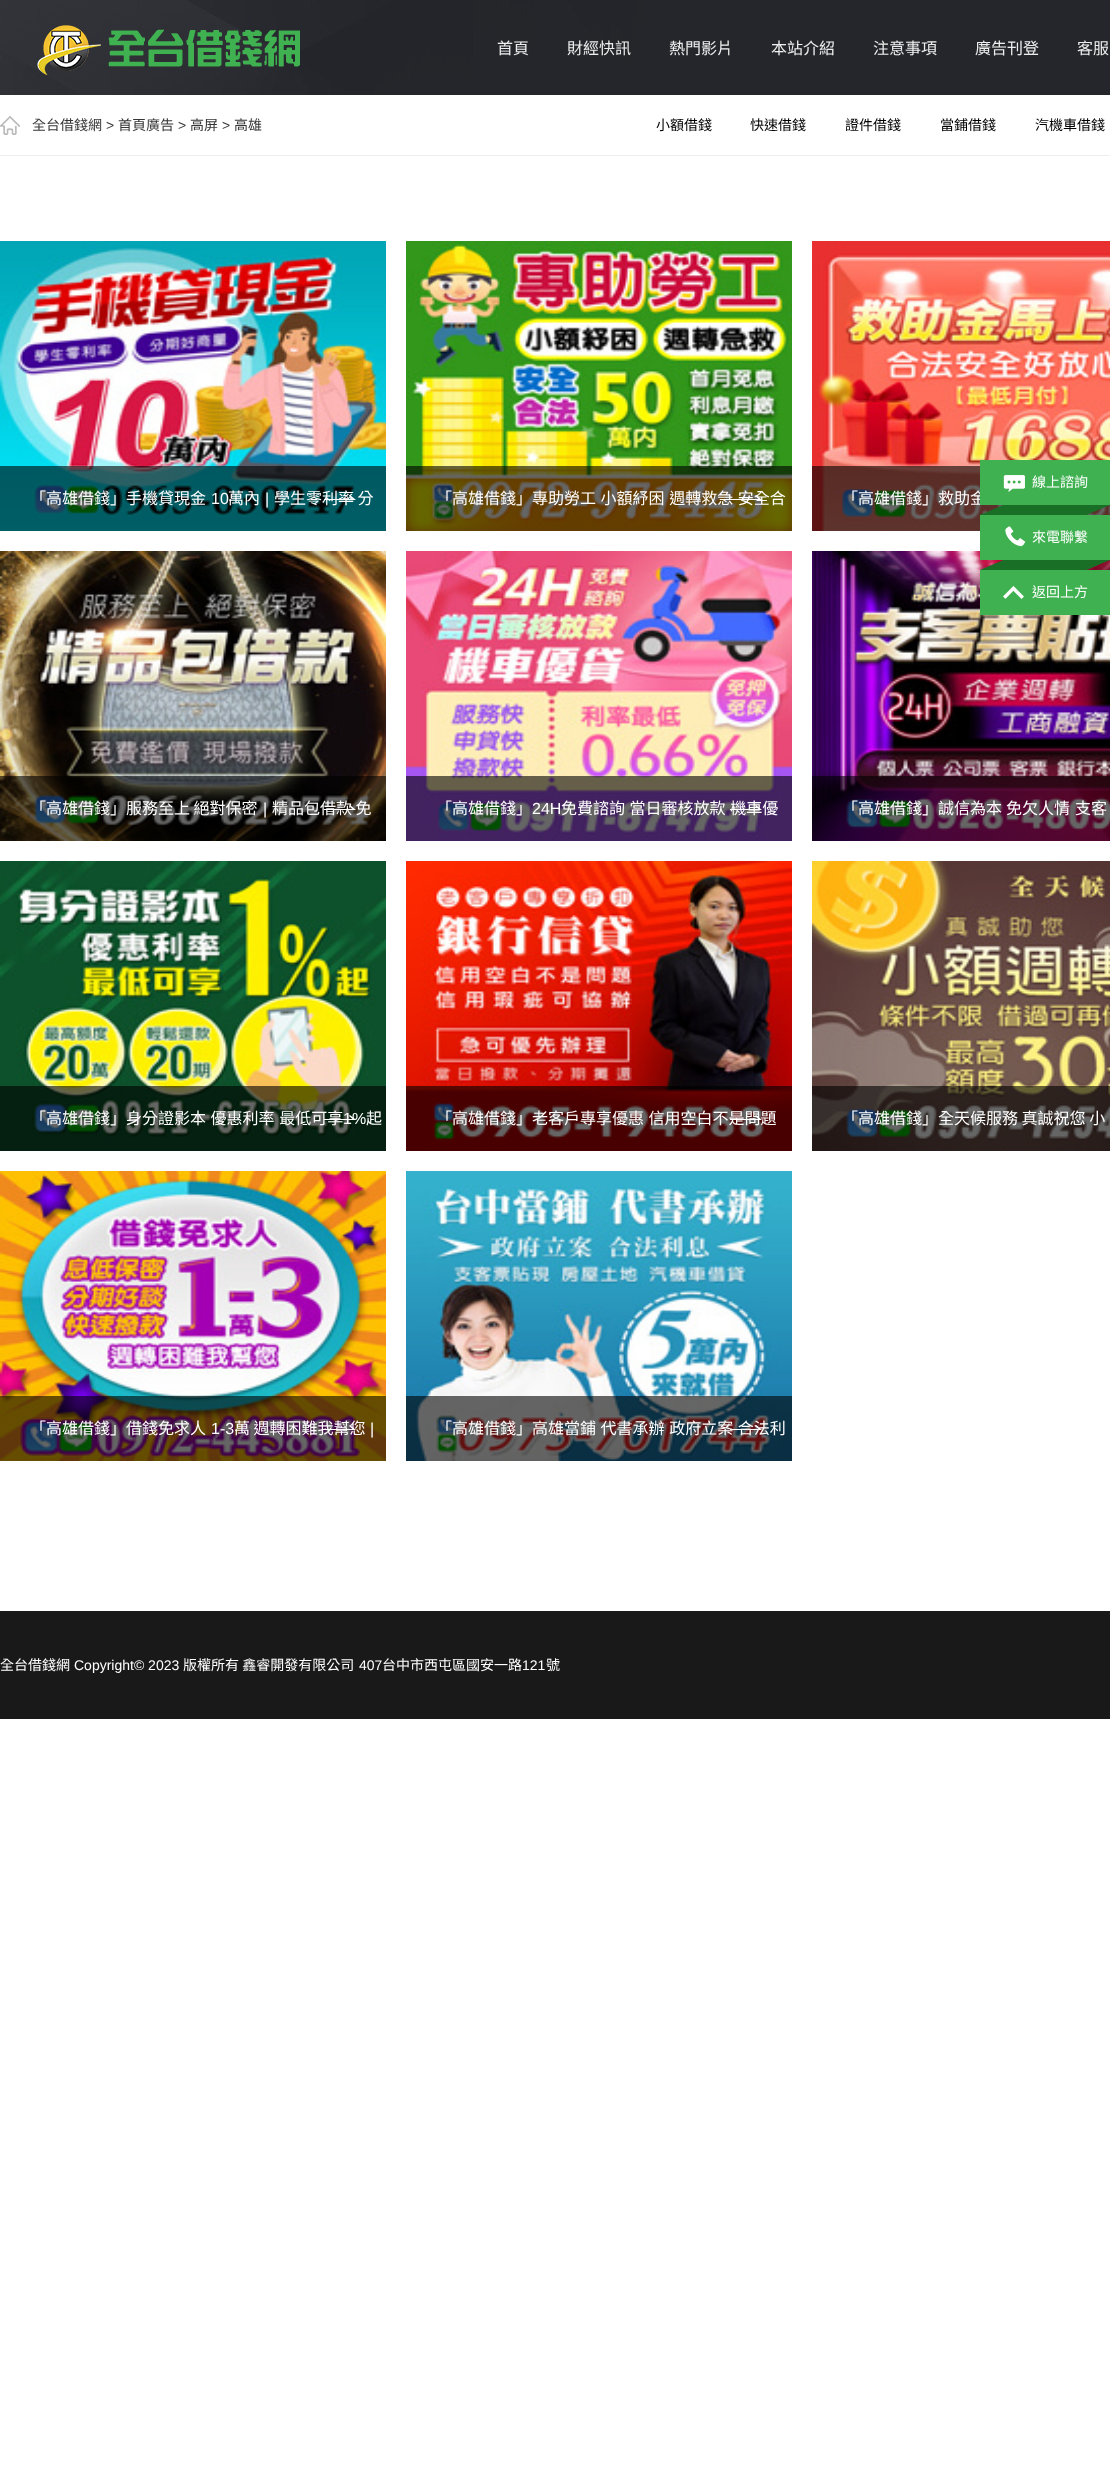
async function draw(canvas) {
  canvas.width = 1110
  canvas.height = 2490
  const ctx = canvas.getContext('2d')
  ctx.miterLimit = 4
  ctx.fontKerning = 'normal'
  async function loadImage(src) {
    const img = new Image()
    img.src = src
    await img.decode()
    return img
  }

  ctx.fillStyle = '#fff'
  ctx.fillRect(0, 0, 1110, 2490)
  ctx.drawImage(await loadImage('image0.png'), 0, 0, 1110, 95)
  ctx.drawImage(await loadImage('image1.png'), 37, 25, 263, 50)
  ctx.font = '16px Noto Sans CJK TC'
  ctx.fillStyle = '#eee'
  ctx.fillText('首頁', 497, 54)
  ctx.fillText('財經快訊', 567, 54)
  ctx.fillText('熱門影片', 669, 54)
  ctx.fillText('本站介紹', 771, 54)
  ctx.fillText('注意事項', 873, 54)
  ctx.fillText('廣告刊登', 975, 54)
  ctx.fillText('客服', 1077, 54)
  ctx.fillRect(0, 155, 1110, 1)
  ctx.drawImage(await loadImage('image2.png'), 0, 116, 20, 19)
  ctx.font = '14px Noto Sans CJK TC'
  ctx.fillStyle = '#363636'
  ctx.fillText('全台借錢網', 32, 130)
  ctx.font = '14px Liberation Sans'
  ctx.fillText('>', 106, 130)
  ctx.font = '14px Noto Sans CJK TC'
  ctx.fillText('首頁廣告', 118, 130)
  ctx.font = '14px Liberation Sans'
  ctx.fillText('>', 178, 130)
  ctx.font = '14px Noto Sans CJK TC'
  ctx.fillText('高屏', 190, 130)
  ctx.font = '14px Liberation Sans'
  ctx.fillText('>', 222, 130)
  ctx.font = '14px Noto Sans CJK TC'
  ctx.fillText('高雄', 234, 130)
  ctx.fillStyle = '#000'
  ctx.fillText('小額借錢', 656, 130)
  ctx.fillText('快速借錢', 750, 130)
  ctx.fillText('證件借錢', 845, 130)
  ctx.fillText('當鋪借錢', 940, 130)
  ctx.fillText('汽機車借錢', 1035, 130)
  ctx.drawImage(await loadImage('image12.png'), 812, 241, 298, 290)
  ctx.fillStyle = '#00000099'
  ctx.fillRect(812, 466, 298, 65)
  ctx.font = '16px Noto Sans CJK TC'
  ctx.fillStyle = '#fff'
  ctx.fillText('「高雄借錢」救助金', 842, 504)
  ctx.drawImage(await loadImage('image3.png'), 980, 460, 130, 55)
  ctx.drawImage(await loadImage('image4.png'), 1003, 475, 22, 17)
  ctx.font = '14px Noto Sans CJK TC'
  ctx.fillText('線上諮詢', 1032, 487)
  ctx.drawImage(await loadImage('image17.png'), 812, 551, 298, 290)
  ctx.drawImage(await loadImage('image5.png'), 980, 515, 130, 55)
  ctx.drawImage(await loadImage('image6.png'), 1005, 526, 21, 21)
  ctx.fillText('來電聯繫', 1032, 542)
  ctx.fillStyle = '#3fb150'
  ctx.fillRect(980, 570, 130, 45)
  ctx.drawImage(await loadImage('image7.png'), 1003, 586, 21, 13)
  ctx.fillStyle = '#fff'
  ctx.fillText('返回上方', 1032, 597)
  ctx.drawImage(await loadImage('image8.png'), 0, 241, 386, 290)
  ctx.fillStyle = '#00000099'
  ctx.fillRect(0, 466, 386, 65)
  ctx.font = '16px Noto Sans CJK TC'
  ctx.fillStyle = '#fff'
  ctx.fillText('「高雄借錢」手機貸現金', 30, 504)
  ctx.font = '16px Liberation Sans'
  ctx.fillText('10', 211, 504)
  ctx.font = '16px Noto Sans CJK TC'
  ctx.fillText('萬內', 228, 504)
  ctx.font = '16px Liberation Sans'
  ctx.fillText('|', 265, 504)
  ctx.font = '16px Noto Sans CJK TC'
  ctx.fillText('學生零利率 分', 274, 504)
  ctx.drawImage(await loadImage('image9.png'), 324, 495, 32, 5)
  ctx.drawImage(await loadImage('image10.png'), 406, 241, 386, 290)
  ctx.fillStyle = '#00000099'
  ctx.fillRect(406, 466, 386, 65)
  ctx.wordSpacing = '1px'
  ctx.fillStyle = '#fff'
  ctx.fillText('「高雄借錢」專助勞工 小額紓困 週轉救急 安全合', 436, 504)
  ctx.drawImage(await loadImage('image11.png'), 730, 495, 32, 5)
  ctx.drawImage(await loadImage('image13.png'), 0, 551, 386, 290)
  ctx.fillStyle = '#00000099'
  ctx.fillRect(0, 776, 386, 65)
  ctx.wordSpacing = '0px'
  ctx.fillStyle = '#fff'
  ctx.fillText('「高雄借錢」服務至上 絕對保密', 30, 814)
  ctx.font = '16px Liberation Sans'
  ctx.fillText('|', 263, 814)
  ctx.font = '16px Noto Sans CJK TC'
  ctx.fillText('精品包借款 免', 272, 814)
  ctx.drawImage(await loadImage('image14.png'), 324, 805, 32, 5)
  ctx.drawImage(await loadImage('image15.png'), 406, 551, 386, 290)
  ctx.fillStyle = '#00000099'
  ctx.fillRect(406, 776, 386, 65)
  ctx.fillStyle = '#fff'
  ctx.fillText('「高雄借錢」', 436, 814)
  ctx.font = '16px Liberation Sans'
  ctx.fillText('24H', 532, 814)
  ctx.wordSpacing = '1px'
  ctx.font = '16px Noto Sans CJK TC'
  ctx.fillText('免費諮詢 當日審核放款 機車優', 561, 814)
  ctx.drawImage(await loadImage('image16.png'), 730, 805, 32, 5)
  ctx.fillStyle = '#00000099'
  ctx.fillRect(812, 776, 298, 65)
  ctx.wordSpacing = '0px'
  ctx.fillStyle = '#fff'
  ctx.fillText('「高雄借錢」誠信為本', 842, 814)
  ctx.fillText('免欠人情', 1006, 814)
  ctx.fillText('支客', 1075, 814)
  ctx.drawImage(await loadImage('image18.png'), 0, 861, 386, 290)
  ctx.fillStyle = '#00000099'
  ctx.fillRect(0, 1086, 386, 65)
  ctx.wordSpacing = '1px'
  ctx.fillStyle = '#fff'
  ctx.fillText('「高雄借錢」身分證影本 優惠利率 最低可享', 30, 1124)
  ctx.wordSpacing = '0px'
  ctx.font = '16px Liberation Sans'
  ctx.fillText('1%', 343, 1124)
  ctx.font = '16px Noto Sans CJK TC'
  ctx.fillText('起', 366, 1124)
  ctx.drawImage(await loadImage('image19.png'), 324, 1115, 32, 5)
  ctx.drawImage(await loadImage('image20.png'), 406, 861, 386, 290)
  ctx.fillStyle = '#00000099'
  ctx.fillRect(406, 1086, 386, 65)
  ctx.wordSpacing = '1px'
  ctx.fillStyle = '#fff'
  ctx.fillText('「高雄借錢」老客戶專享優惠 信用空白不是問題', 436, 1124)
  ctx.drawImage(await loadImage('image21.png'), 730, 1115, 32, 5)
  ctx.drawImage(await loadImage('image22.png'), 812, 861, 298, 290)
  ctx.fillStyle = '#00000099'
  ctx.fillRect(812, 1086, 298, 65)
  ctx.wordSpacing = '0px'
  ctx.fillStyle = '#fff'
  ctx.fillText('「高雄借錢」全天候服務 真誠祝您 小', 842, 1124)
  ctx.drawImage(await loadImage('image23.png'), 0, 1171, 386, 290)
  ctx.fillStyle = '#00000099'
  ctx.fillRect(0, 1396, 386, 65)
  ctx.fillStyle = '#fff'
  ctx.fillText('「高雄借錢」借錢免求人', 30, 1434)
  ctx.font = '16px Liberation Sans'
  ctx.fillText('1-3', 211, 1434)
  ctx.font = '16px Noto Sans CJK TC'
  ctx.fillText('萬 週轉困難我幫您', 234, 1434)
  ctx.font = '16px Liberation Sans'
  ctx.fillText('|', 370, 1434)
  ctx.drawImage(await loadImage('image24.png'), 324, 1425, 32, 5)
  ctx.drawImage(await loadImage('image25.png'), 406, 1171, 386, 290)
  ctx.fillStyle = '#00000099'
  ctx.fillRect(406, 1396, 386, 65)
  ctx.wordSpacing = '1px'
  ctx.font = '16px Noto Sans CJK TC'
  ctx.fillStyle = '#fff'
  ctx.fillText('「高雄借錢」高雄當鋪 代書承辦 政府立案 合法利', 436, 1434)
  ctx.drawImage(await loadImage('image26.png'), 730, 1425, 32, 5)
  ctx.fillStyle = '#191919'
  ctx.fillRect(0, 1611, 1110, 108)
  ctx.wordSpacing = '0px'
  ctx.font = '14px Noto Sans CJK TC'
  ctx.fillStyle = '#fff'
  ctx.fillText('全台借錢網', 0, 1670)
  ctx.font = '14px Liberation Sans'
  ctx.fillText('Copyright© 2023', 74, 1670)
  ctx.font = '14px Noto Sans CJK TC'
  ctx.fillText('版權所有 鑫睿開發有限公司', 183, 1670)
  ctx.font = '14px Liberation Sans'
  ctx.fillText('407', 359, 1670)
  ctx.font = '14px Noto Sans CJK TC'
  ctx.fillText('台中市西屯區國安一路', 382, 1670)
  ctx.font = '14px Liberation Sans'
  ctx.fillText('121', 522, 1670)
  ctx.font = '14px Noto Sans CJK TC'
  ctx.fillText('號', 546, 1670)
}

draw(document.querySelector('canvas'))
